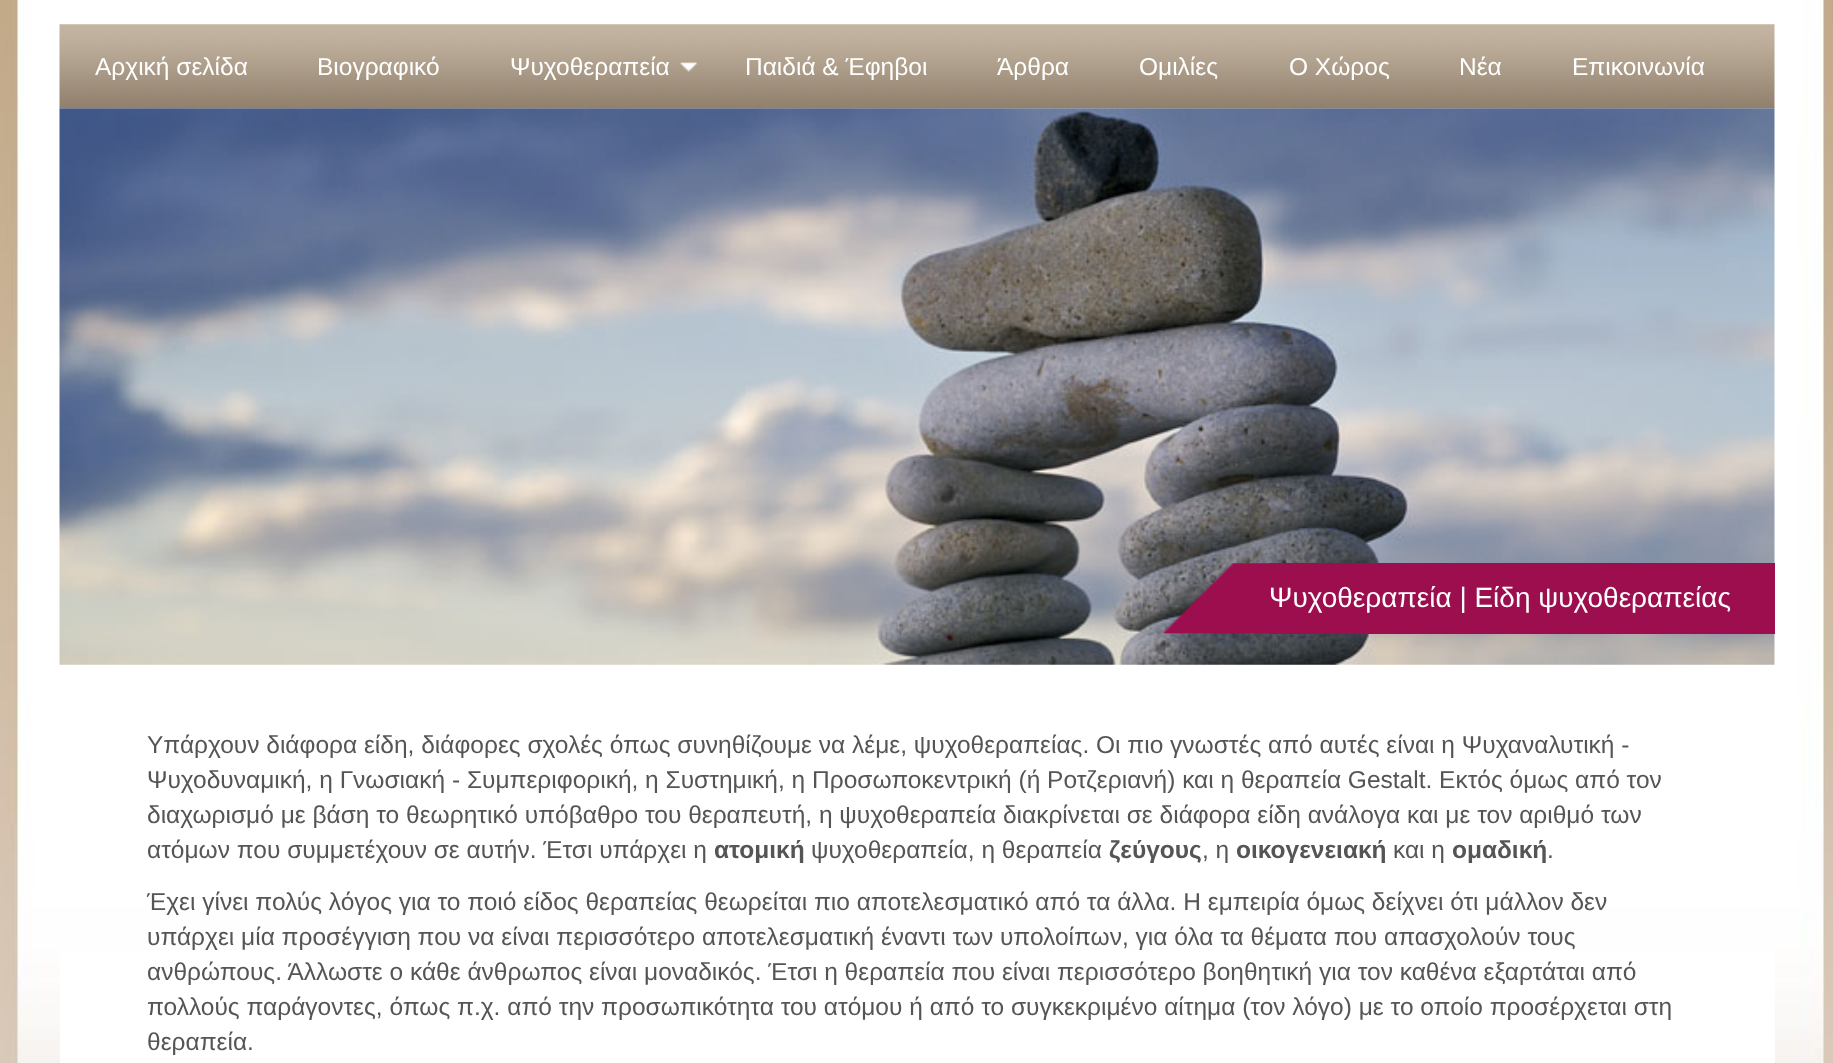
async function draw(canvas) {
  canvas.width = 1833
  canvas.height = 1063
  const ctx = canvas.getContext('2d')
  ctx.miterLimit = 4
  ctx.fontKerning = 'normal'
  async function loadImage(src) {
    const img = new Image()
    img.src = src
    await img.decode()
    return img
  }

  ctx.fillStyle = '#fff'
  ctx.fillRect(0, 0, 1833, 1063)
  ctx.drawImage(await loadImage('image0.png'), 0, 0, 1833, 1063)
  ctx.drawImage(await loadImage('image3.png'), 59, 108, 1716, 557)
  ctx.drawImage(await loadImage('image1.png'), 59, 24, 1716, 85)
  ctx.font = '24.5px Liberation Sans'
  ctx.fillText('Αρχική σελίδα', 95, 75)
  ctx.fillText('Βιογραφικό', 317, 75)
  ctx.fillText('Ψυχοθεραπεία', 510, 75)
  ctx.drawImage(await loadImage('image2.png'), 680, 62, 17, 10)
  ctx.fillText('Παιδιά & Έφηβοι', 745, 75)
  ctx.fillText('Άρθρα', 997, 75)
  ctx.fillText('Ομιλίες', 1139, 75)
  ctx.fillText('Ο Χώρος', 1289, 75)
  ctx.fillText('Νέα', 1459, 75)
  ctx.fillText('Επικοινωνία', 1572, 75)
  ctx.drawImage(await loadImage('image4.png'), 1162, 563, 106, 71)
  ctx.fillStyle = '#9d0e4e'
  ctx.fillRect(1268, 563, 507, 71)
  ctx.font = '28px Liberation Sans'
  ctx.fillStyle = '#fff'
  ctx.fillText('Ψυχοθεραπεία | Είδη ψυχοθεραπείας', 1269, 607)
  ctx.fillRect(60, 950, 1715, 113)
  ctx.font = '24.5px Liberation Sans'
  ctx.fillStyle = '#555'
  ctx.fillText('Υπάρχουν διάφορα είδη, διάφορες σχολές όπως συνηθίζουμε να λέμε, ψυχοθεραπείας. Οι πιο γνωστές από αυτές είναι η Ψυχαναλυτική -', 147, 753)
  ctx.fillText('Ψυχοδυναμική, η Γνωσιακή - Συμπεριφορική, η Συστημική, η Προσωποκεντρική (ή Ροτζεριανή) και η θεραπεία Gestalt. Εκτός όμως από τον', 147, 788)
  ctx.fillText('διαχωρισμό με βάση το θεωρητικό υπόβαθρο του θεραπευτή, η ψυχοθεραπεία διακρίνεται σε διάφορα είδη ανάλογα και με τον αριθμό των', 147, 823)
  ctx.fillText('ατόμων που συμμετέχουν σε αυτήν. Έτσι υπάρχει η', 147, 858)
  ctx.font = 'bold 24.5px Liberation Sans'
  ctx.fillText('ατομική', 714, 858)
  ctx.font = '24.5px Liberation Sans'
  ctx.fillText('ψυχοθεραπεία, η θεραπεία', 811, 858)
  ctx.font = 'bold 24.5px Liberation Sans'
  ctx.fillText('ζεύγους', 1109, 858)
  ctx.font = '24.5px Liberation Sans'
  ctx.fillText(', η', 1202, 858)
  ctx.font = 'bold 24.5px Liberation Sans'
  ctx.fillText('οικογενειακή', 1236, 858)
  ctx.font = '24.5px Liberation Sans'
  ctx.fillText('και η', 1393, 858)
  ctx.font = 'bold 24.5px Liberation Sans'
  ctx.fillText('ομαδική', 1452, 858)
  ctx.font = '24.5px Liberation Sans'
  ctx.fillText('.', 1547, 858)
  ctx.fillText('Έχει γίνει πολύς λόγος για το ποιό είδος θεραπείας θεωρείται πιο αποτελεσματικό από τα άλλα. Η εμπειρία όμως δείχνει ότι μάλλον δεν', 147, 910)
  ctx.fillText('υπάρχει μία προσέγγιση που να είναι περισσότερο αποτελεσματική έναντι των υπολοίπων, για όλα τα θέματα που απασχολούν τους', 147, 945)
  ctx.fillText('ανθρώπους. Άλλωστε ο κάθε άνθρωπος είναι μοναδικός. Έτσι η θεραπεία που είναι περισσότερο βοηθητική για τον καθένα εξαρτάται από', 147, 980)
  ctx.fillText('πολλούς παράγοντες, όπως π.χ. από την προσωπικότητα του ατόμου ή από το συγκεκριμένο αίτημα (τον λόγο) με το οποίο προσέρχεται στη', 147, 1015)
  ctx.fillText('θεραπεία.', 147, 1050)
}

draw(document.querySelector('canvas'))
